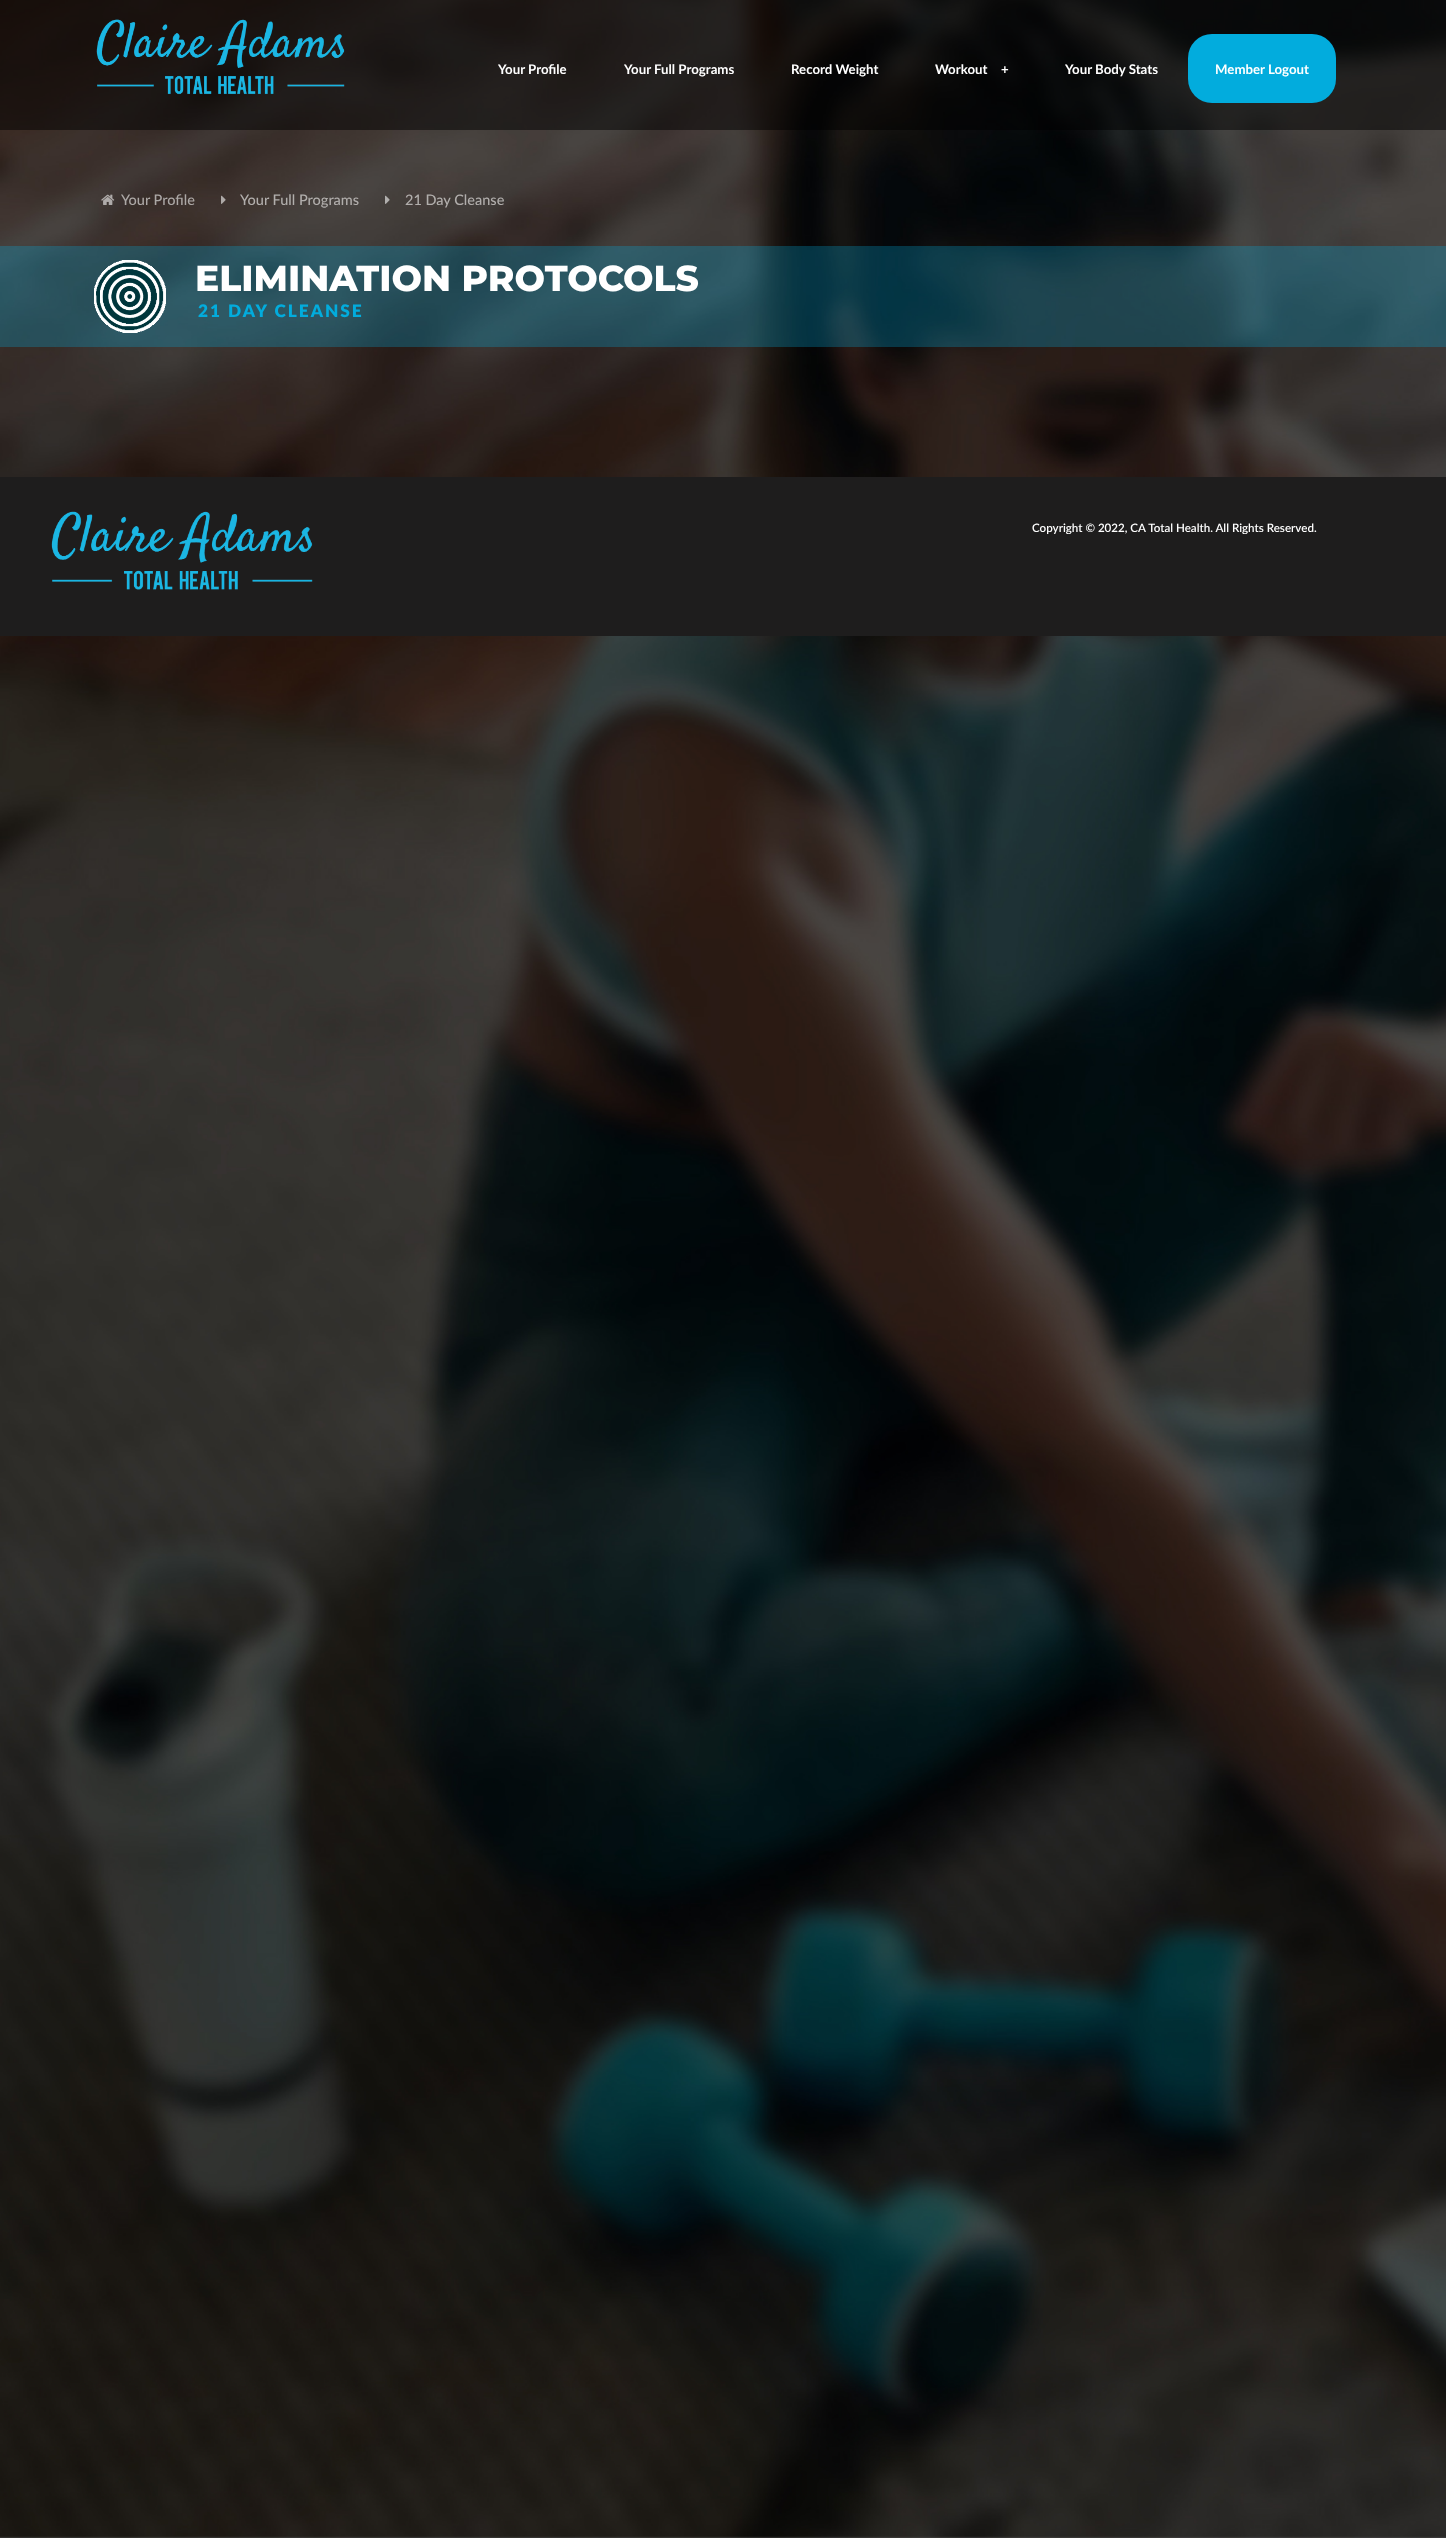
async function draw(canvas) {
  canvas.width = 1446
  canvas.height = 2538
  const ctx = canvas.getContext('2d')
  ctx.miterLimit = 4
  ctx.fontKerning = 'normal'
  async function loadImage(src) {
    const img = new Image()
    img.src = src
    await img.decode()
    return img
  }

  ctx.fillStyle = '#fff'
  ctx.fillRect(0, 0, 1446, 2538)
  ctx.drawImage(await loadImage('image0.png'), 0, 0, 1446, 2538)
  ctx.fillStyle = '#00000080'
  ctx.fillRect(0, 0, 1446, 130)
  ctx.drawImage(await loadImage('image1.png'), 96, 19, 249, 76)
  ctx.font = 'bold 13.25px Lato'
  ctx.fillStyle = '#fff'
  ctx.fillText('Your Profile', 498, 74)
  ctx.fillText('Your Full Programs', 624, 74)
  ctx.fillText('Record Weight', 791, 74)
  ctx.fillText('Workout', 935, 74)
  ctx.fillText('+', 1001, 74)
  ctx.fillText('Your Body Stats', 1065, 74)
  ctx.fillStyle = '#02acdd'
  ctx.beginPath()
  ctx.roundRect(1188, 34, 148, 69, 24)
  ctx.fill()
  ctx.fillStyle = '#fff'
  ctx.fillText('Member Logout', 1215, 74)
  ctx.drawImage(await loadImage('image2.png'), 101, 194, 14, 11)
  ctx.font = '500 14.5px Lato'
  ctx.fillStyle = '#aca8a6'
  ctx.fillText('Your Profile', 121, 205)
  ctx.drawImage(await loadImage('image3.png'), 221, 195, 5, 9)
  ctx.fillStyle = '#b1aeac'
  ctx.fillText('Your Full Programs', 240, 205)
  ctx.drawImage(await loadImage('image4.png'), 385, 195, 5, 9)
  ctx.fillText('21 Day Cleanse', 405, 205)
  ctx.fillStyle = '#02acdd47'
  ctx.fillRect(0, 246, 1446, 101)
  ctx.drawImage(await loadImage('image5.png'), 94, 260, 72, 73)
  ctx.font = '800 36.1px Montserrat'
  ctx.fillStyle = '#fff'
  ctx.fillText('ELIMINATION PROTOCOLS', 195, 291)
  ctx.letterSpacing = '2px'
  ctx.font = '800 17.25px Lato'
  ctx.fillStyle = '#02acdd'
  ctx.fillText('21 DAY CLEANSE', 198, 317)
  ctx.fillStyle = '#1e1d1d'
  ctx.fillRect(0, 477, 1446, 159)
  ctx.drawImage(await loadImage('image6.png'), 51, 511, 262, 79)
  ctx.letterSpacing = '0px'
  ctx.font = '600 11.6px Lato'
  ctx.fillStyle = '#fff'
  ctx.fillText('Copyright © 2022, CA Total Health. All Rights Reserved.', 1032, 532)
}

draw(document.querySelector('canvas'))
